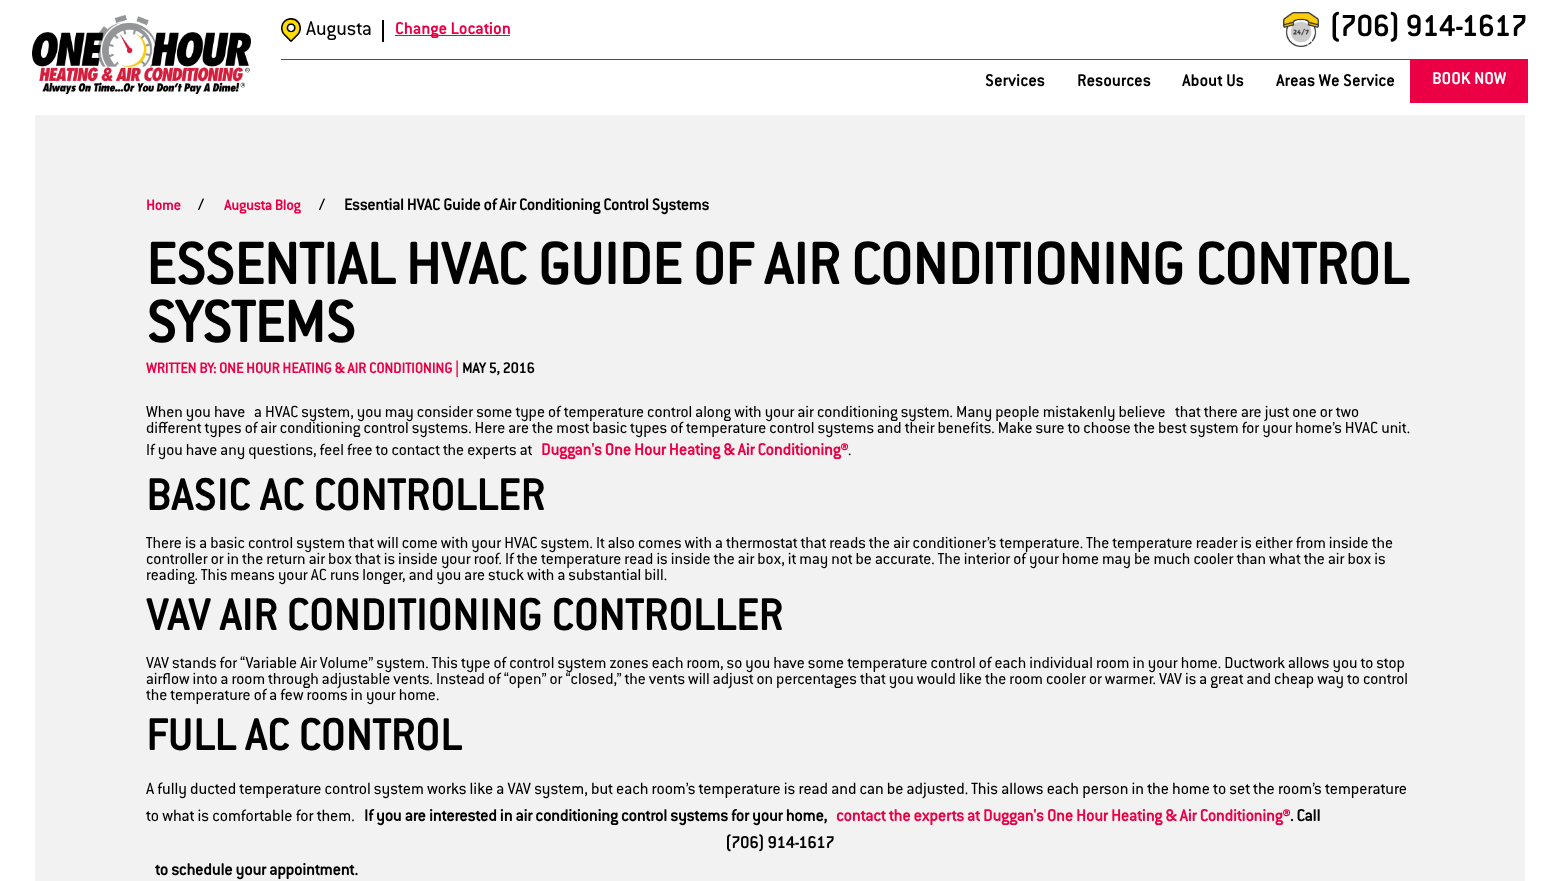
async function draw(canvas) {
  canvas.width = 1560
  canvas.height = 881
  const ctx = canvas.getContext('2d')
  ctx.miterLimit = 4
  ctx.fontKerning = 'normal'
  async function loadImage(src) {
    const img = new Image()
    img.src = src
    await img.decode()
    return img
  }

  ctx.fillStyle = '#fff'
  ctx.fillRect(0, 0, 1560, 881)
  ctx.drawImage(await loadImage('image0.png'), 32, 15, 219, 79)
  ctx.fillStyle = '#4d4d4d'
  ctx.fillRect(281, 59, 1247, 1)
  ctx.drawImage(await loadImage('image1.png'), 281, 18, 20, 24)
  ctx.fillStyle = '#000'
  ctx.fillRect(382, 20, 2, 22)
  ctx.font = '22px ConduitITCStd'
  ctx.fillText('Augusta', 306, 35)
  ctx.fillStyle = '#eb0045'
  ctx.fillRect(395, 35, 115, 1)
  ctx.letterSpacing = '0.4px'
  ctx.font = 'bold 18px ConduitITCStd'
  ctx.fillText('Change Location', 395, 34)
  ctx.drawImage(await loadImage('image2.png'), 1283, 12, 36, 35)
  ctx.letterSpacing = '0.25px'
  ctx.font = 'bold 32px ConduitITCStd'
  ctx.fillStyle = '#000'
  ctx.fillText('(706) 914-1617', 1329, 36)
  ctx.letterSpacing = '0.4px'
  ctx.font = 'bold 18px ConduitITCStd'
  ctx.fillText('Services', 985, 86)
  ctx.fillText('Resources', 1077, 86)
  ctx.fillText('About Us', 1182, 86)
  ctx.fillText('Areas We Service', 1276, 86)
  ctx.fillStyle = '#eb0045'
  ctx.fillRect(1410, 60, 118, 43)
  ctx.fillStyle = '#fff'
  ctx.fillText('BOOK NOW', 1432, 84)
  ctx.fillStyle = '#f2f2f2'
  ctx.fillRect(35, 115, 1490, 766)
  ctx.letterSpacing = '0px'
  ctx.font = 'bold 16px ConduitITCStd'
  ctx.fillStyle = '#eb0045'
  ctx.fillText('Home', 146, 210)
  ctx.font = 'bold 17.62px ConduitITCStd'
  ctx.fillStyle = '#000'
  ctx.fillText('/', 198, 210)
  ctx.font = 'bold 16px ConduitITCStd'
  ctx.fillStyle = '#eb0045'
  ctx.fillText('Augusta Blog', 224, 210)
  ctx.font = 'bold 17.62px ConduitITCStd'
  ctx.fillStyle = '#000'
  ctx.fillText('/', 319, 210)
  ctx.fillText('Essential HVAC Guide of Air Conditioning Control Systems', 344, 210)
  ctx.font = 'bold 64px ConduitITCStd'
  ctx.fillText('ESSENTIAL HVAC GUIDE OF AIR CONDITIONING CONTROL', 146, 284)
  ctx.fillText('SYSTEMS', 146, 342)
  ctx.font = 'bold 16px ConduitITCStd'
  ctx.fillStyle = '#eb0045'
  ctx.fillText('WRITTEN BY: ONE HOUR HEATING & AIR CONDITIONING |', 146, 373)
  ctx.fillStyle = '#000'
  ctx.fillText('MAY 5, 2016', 462, 373)
  ctx.font = '17.62px ConduitITCStd'
  ctx.fillText('When you have', 146, 417)
  ctx.fillText('a HVAC system, you may consider some type of temperature control along with your air conditioning system. Many people mistakenly believe', 254, 417)
  ctx.fillText('that there are just one or two', 1175, 417)
  ctx.fillText('different types of air conditioning control systems. Here are the most basic types of temperature control systems and their benefits. Make sure to choose the best system for your home’s HVAC unit.', 146, 433)
  ctx.fillText('If you have any questions, feel free to contact the experts at', 146, 455)
  ctx.font = 'bold 18px ConduitITCStd'
  ctx.fillStyle = '#eb0045'
  ctx.fillText('Duggan\'s One Hour Heating & Air Conditioning®', 541, 455)
  ctx.font = '17.62px ConduitITCStd'
  ctx.fillStyle = '#000'
  ctx.fillText('.', 848, 455)
  ctx.letterSpacing = '0.5px'
  ctx.font = 'bold 48px ConduitITCStd'
  ctx.fillText('BASIC AC CONTROLLER', 146, 510)
  ctx.letterSpacing = '0px'
  ctx.font = '17.62px ConduitITCStd'
  ctx.fillText('There is a basic control system that will come with your HVAC system. It also comes with a thermostat that reads the air conditioner’s temperature. The temperature reader is either from inside the', 146, 548)
  ctx.fillText('controller or in the return air box that is inside your roof. If the temperature read is inside the air box, it may not be accurate. The interior of your home may be much cooler than what the air box is', 146, 564)
  ctx.fillText('reading. This means your AC runs longer, and you are stuck with a substantial bill.', 146, 580)
  ctx.letterSpacing = '0.5px'
  ctx.font = 'bold 48px ConduitITCStd'
  ctx.fillText('VAV AIR CONDITIONING CONTROLLER', 146, 630)
  ctx.letterSpacing = '0px'
  ctx.font = '17.62px ConduitITCStd'
  ctx.fillText('VAV stands for “Variable Air Volume” system. This type of control system zones each room, so you have some temperature control of each individual room in your home. Ductwork allows you to stop', 146, 668)
  ctx.fillText('airflow into a room through adjustable vents. Instead of “open” or “closed,” the vents will adjust on percentages that you would like the room cooler or warmer. VAV is a great and cheap way to control', 146, 684)
  ctx.fillText('the temperature of a few rooms in your home.', 146, 700)
  ctx.letterSpacing = '0.5px'
  ctx.font = 'bold 48px ConduitITCStd'
  ctx.fillText('FULL AC CONTROL', 146, 750)
  ctx.letterSpacing = '0px'
  ctx.font = '18px ConduitITCStd'
  ctx.fillText('A fully ducted temperature control system works like a VAV system, but each room’s temperature is read and can be adjusted. This allows each person in the home to set the room’s temperature', 146, 794)
  ctx.fillText('to what is comfortable for them.', 146, 821)
  ctx.font = 'bold 18px ConduitITCStd'
  ctx.fillText('If you are interested in air conditioning control systems for your home,', 364, 821)
  ctx.fillStyle = '#eb0045'
  ctx.fillText('contact the experts at Duggan\'s One Hour Heating & Air Conditioning®', 836, 821)
  ctx.fillStyle = '#000'
  ctx.fillText('. Call', 1290, 821)
  ctx.fillText('(706) 914-1617', 725, 848)
  ctx.fillText('to schedule your appointment.', 155, 875)
}

draw(document.querySelector('canvas'))
